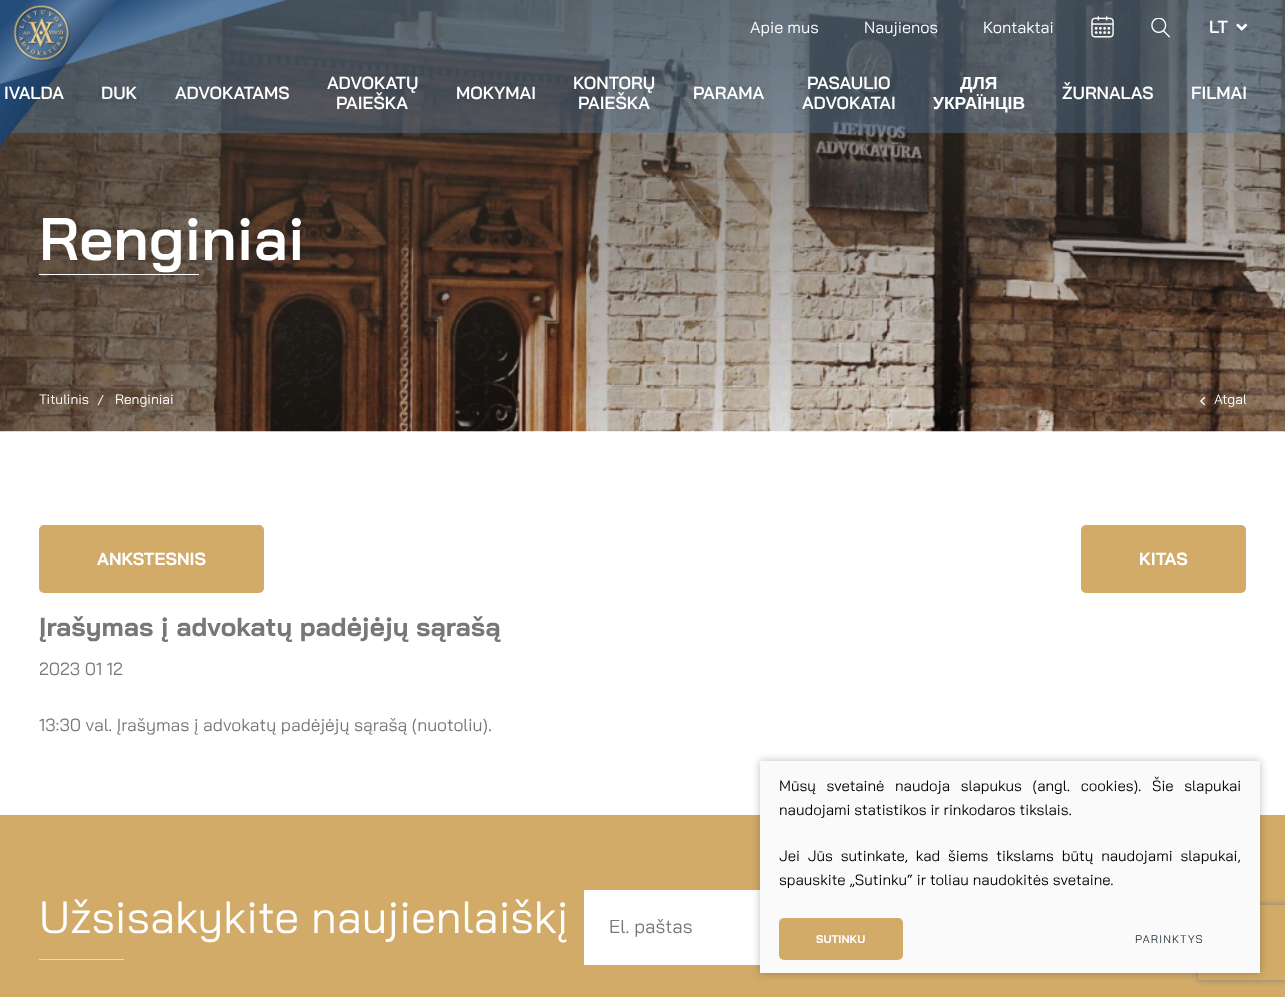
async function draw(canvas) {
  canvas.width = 1285
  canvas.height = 997
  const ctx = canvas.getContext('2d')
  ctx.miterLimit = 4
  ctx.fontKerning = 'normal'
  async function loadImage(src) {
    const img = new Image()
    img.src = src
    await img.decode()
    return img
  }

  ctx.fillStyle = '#fff'
  ctx.fillRect(0, 0, 1285, 997)
  ctx.drawImage(await loadImage('image4.png'), 0, 0, 1285, 432)
  ctx.fillStyle = '#527a9f66'
  ctx.fillRect(0, 0, 1285, 133)
  ctx.drawImage(await loadImage('image0.png'), 0, 0, 286, 147)
  ctx.font = '16.25px Bai Jamjuree'
  ctx.fillStyle = '#fff'
  ctx.fillText('Apie mus', 750, 33)
  ctx.fillText('Naujienos', 864, 33)
  ctx.fillText('Kontaktai', 983, 33)
  ctx.drawImage(await loadImage('image1.png'), 1091, 16, 23, 22)
  ctx.drawImage(await loadImage('image2.png'), 1151, 18, 19, 20)
  ctx.font = '600 17.5px Bai Jamjuree'
  ctx.fillText('LT', 1209, 33)
  ctx.drawImage(await loadImage('image3.png'), 1236, 23, 12, 8)
  ctx.fillText('IVALDA', 4, 99)
  ctx.fillText('DUK', 101, 99)
  ctx.fillText('ADVOKATAMS', 175, 99)
  ctx.fillText('ADVOKATŲ', 327, 89)
  ctx.fillText('PAIEŠKA', 336, 109)
  ctx.fillText('MOKYMAI', 456, 99)
  ctx.fillText('KONTORŲ', 573, 89)
  ctx.fillText('PAIEŠKA', 578, 109)
  ctx.fillText('PARAMA', 693, 99)
  ctx.fillText('PASAULIO', 807, 89)
  ctx.fillText('ADVOKATAI', 802, 109)
  ctx.font = 'bold 17.5px Liberation Sans'
  ctx.fillText('ДЛЯ', 960, 89)
  ctx.fillText('УКРАЇНЦІВ', 933, 109)
  ctx.font = '600 17.5px Bai Jamjuree'
  ctx.fillText('ŽURNALAS', 1062, 99)
  ctx.fillText('FILMAI', 1191, 99)
  ctx.font = '600 60px Bai Jamjuree'
  ctx.fillText('Renginiai', 39, 260)
  ctx.fillRect(39, 274, 160, 1)
  ctx.font = '13.75px Bai Jamjuree'
  ctx.fillText('Titulinis', 39, 404)
  ctx.fillText('/', 97, 405)
  ctx.fillText('Renginiai', 115, 404)
  ctx.drawImage(await loadImage('image5.png'), 1200, 396, 6, 10)
  ctx.fillText('Atgal', 1214, 404)
  ctx.fillStyle = '#d1ab67'
  ctx.beginPath()
  ctx.roundRect(39, 525, 225, 68, 5)
  ctx.fill()
  ctx.font = 'bold 17.5px Bai Jamjuree'
  ctx.fillStyle = '#fff'
  ctx.fillText('ANKSTESNIS', 97, 565)
  ctx.fillStyle = '#d1ab67'
  ctx.beginPath()
  ctx.roundRect(1081, 525, 165, 68, 5)
  ctx.fill()
  ctx.fillStyle = '#fff'
  ctx.fillText('KITAS', 1139, 565)
  ctx.font = 'bold 26.25px Bai Jamjuree'
  ctx.fillStyle = '#777'
  ctx.fillText('Įrašymas į advokatų padėjėjų sąrašą', 39, 636)
  ctx.font = '17.5px Bai Jamjuree'
  ctx.fillText('2023 01 12', 39, 675)
  ctx.fillText('13:30 val. Įrašymas į advokatų padėjėjų sąrašą (nuotoliu).', 39, 731)
  ctx.fillStyle = '#d1ab67'
  ctx.fillRect(0, 815, 1285, 182)
  ctx.font = '45px Bai Jamjuree'
  ctx.fillStyle = '#fff'
  ctx.fillText('Užsisakykite naujienlaiškį', 39, 933)
  ctx.fillStyle = '#ddd'
  ctx.fillRect(39, 959, 85, 1)
  ctx.fillStyle = '#fff'
  ctx.fillRect(584, 890, 176, 75)
  ctx.font = '18.75px Bai Jamjuree'
  ctx.fillStyle = '#777'
  ctx.fillText('El. paštas', 609, 933)
  ctx.save()
  ctx.beginPath()
  ctx.moveTo(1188, 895)
  ctx.lineTo(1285, 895)
  ctx.lineTo(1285, 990)
  ctx.lineTo(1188, 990)
  ctx.closePath()
  ctx.moveTo(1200.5, 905)
  ctx.lineTo(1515.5, 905)
  ctx.bezierCurveTo(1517, 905, 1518, 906, 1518, 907.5)
  ctx.lineTo(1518, 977.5)
  ctx.bezierCurveTo(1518, 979, 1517, 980, 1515.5, 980)
  ctx.lineTo(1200.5, 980)
  ctx.bezierCurveTo(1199, 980, 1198, 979, 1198, 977.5)
  ctx.lineTo(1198, 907.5)
  ctx.bezierCurveTo(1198, 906, 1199, 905, 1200.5, 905)
  ctx.closePath()
  ctx.clip('evenodd')
  ctx.fillStyle = '#808080'
  ctx.filter = 'blur(3px)'
  ctx.beginPath()
  ctx.roundRect(1198, 905, 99, 75, 2.5)
  ctx.fill()
  ctx.filter = 'none'
  ctx.restore()
  ctx.fillStyle = '#00000040'
  ctx.filter = 'blur(4.5px)'
  ctx.beginPath()
  ctx.rect(760, 761, 500, 212)
  ctx.fill()
  ctx.filter = 'none'
  ctx.fillStyle = '#fafafa'
  ctx.fillRect(760, 761, 500, 212)
  ctx.wordSpacing = '6.75px'
  ctx.font = '15px Bai Jamjuree'
  ctx.fillStyle = '#000'
  ctx.fillText('Mūsų svetainė naudoja slapukus (angl. cookies). Šie slapukai', 779, 791)
  ctx.wordSpacing = '0px'
  ctx.fillText('naudojami statistikos ir rinkodaros tikslais.', 779, 815)
  ctx.wordSpacing = '4px'
  ctx.fillText('Jei Jūs sutinkate, kad šiems tikslams būtų naudojami slapukai,', 779, 861)
  ctx.wordSpacing = '0px'
  ctx.fillText('spauskite „Sutinku“ ir toliau naudokitės svetaine.', 779, 885)
  ctx.fillStyle = '#d1ab67'
  ctx.beginPath()
  ctx.roundRect(779, 918, 124, 42, 5)
  ctx.fill()
  ctx.font = 'bold 11.25px Bai Jamjuree'
  ctx.fillStyle = '#fff'
  ctx.fillText('SUTINKU', 816, 943)
  ctx.letterSpacing = '1.1px'
  ctx.font = '11.25px Bai Jamjuree'
  ctx.fillStyle = '#263238'
  ctx.fillText('PARINKTYS', 1135, 943)
}

draw(document.querySelector('canvas'))
